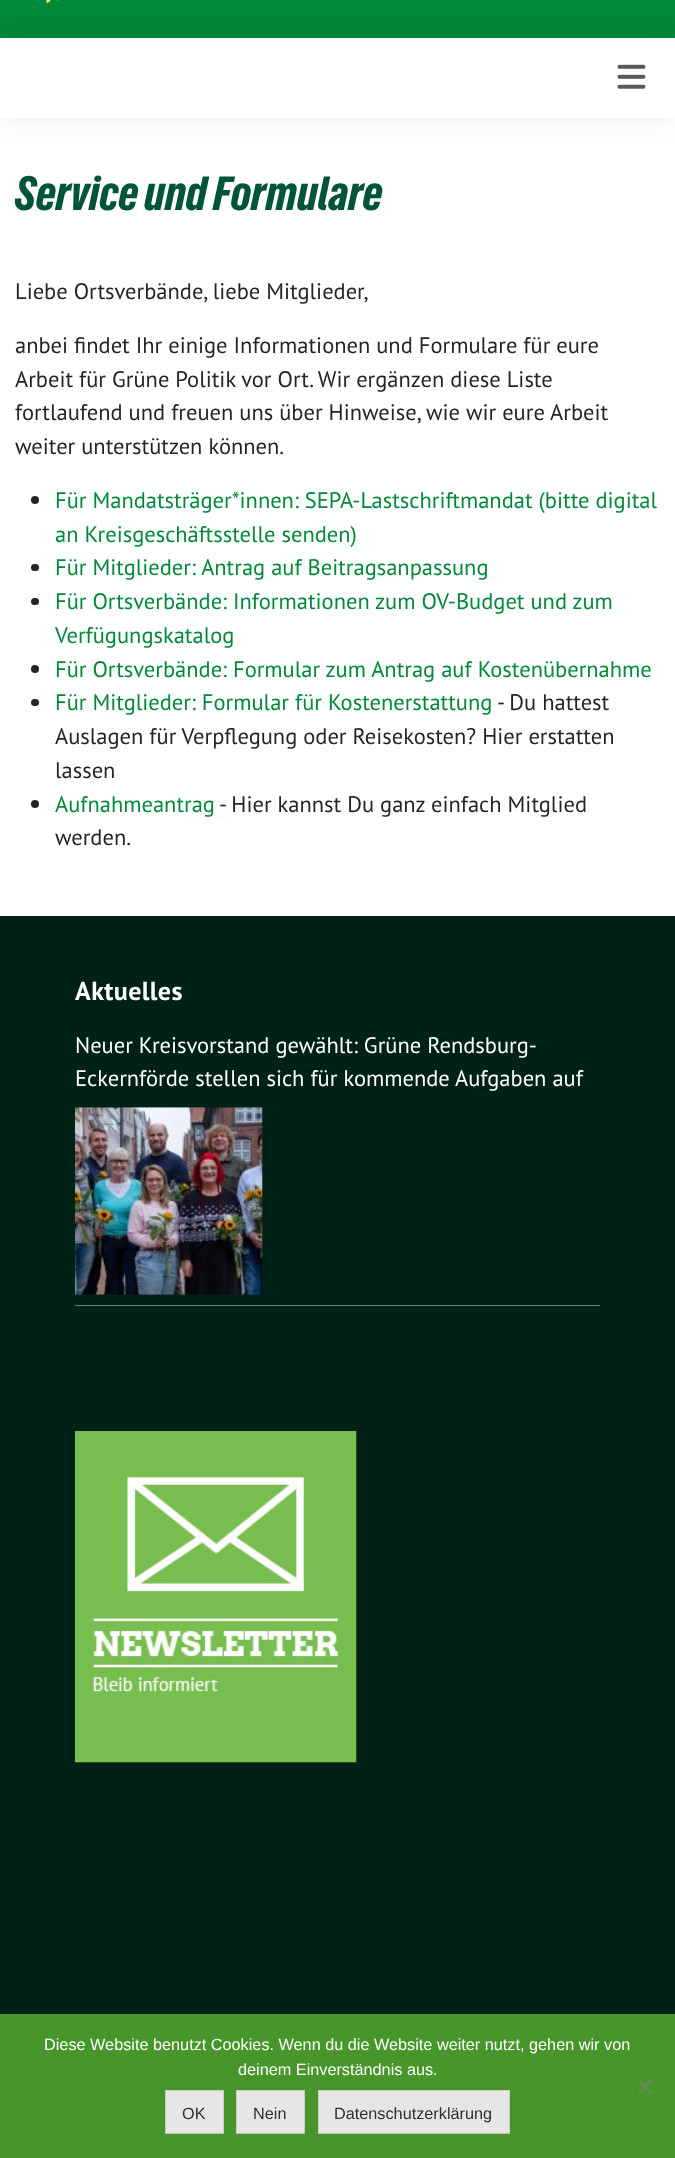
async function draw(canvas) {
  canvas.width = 675
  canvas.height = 2158
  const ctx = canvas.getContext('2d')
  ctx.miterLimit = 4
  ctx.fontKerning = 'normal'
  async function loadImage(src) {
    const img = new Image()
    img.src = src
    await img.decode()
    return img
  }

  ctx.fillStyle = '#fff'
  ctx.fillRect(0, 0, 675, 2158)
  ctx.fillStyle = '#008939'
  ctx.fillRect(0, 0, 675, 38)
  ctx.drawImage(await loadImage('image0.png'), 38, 0, 21, 4)
  ctx.fillStyle = '#00000014'
  ctx.filter = 'blur(12.5px)'
  ctx.beginPath()
  ctx.rect(0, 39, 675, 80)
  ctx.fill()
  ctx.filter = 'none'
  ctx.fillStyle = '#fff'
  ctx.fillRect(0, 38, 675, 80)
  ctx.drawImage(await loadImage('image1.png'), 617, 64, 29, 25)
  ctx.font = '45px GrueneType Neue'
  ctx.fillStyle = '#005437'
  ctx.fillText('Service und Formulare', 15, 210)
  ctx.font = '22.5px PT Sans'
  ctx.fillStyle = '#212529'
  ctx.fillText('Liebe Ortsverbände, liebe Mitglieder,', 15, 299)
  ctx.fillText('anbei findet Ihr einige Informationen und Formulare für eure', 15, 353)
  ctx.fillText('Arbeit für Grüne Politik vor Ort. Wir ergänzen diese Liste', 15, 387)
  ctx.fillText('fortlaufend und freuen uns über Hinweise, wie wir eure Arbeit', 15, 420)
  ctx.fillText('weiter unterstützen können.', 15, 454)
  ctx.beginPath()
  ctx.arc(35, 500, 4, 0, 2 * Math.PI)
  ctx.fill()
  ctx.fillStyle = '#008939'
  ctx.fillText('Für Mandatsträger*innen: SEPA-Lastschriftmandat (bitte digital', 55, 508)
  ctx.fillText('an Kreisgeschäftsstelle senden)', 55, 542)
  ctx.fillStyle = '#212529'
  ctx.beginPath()
  ctx.roundRect(31, 564, 8, 7, 3.5)
  ctx.fill()
  ctx.fillStyle = '#008939'
  ctx.fillText('Für Mitglieder: Antrag auf Beitragsanpassung', 55, 575)
  ctx.fillStyle = '#212529'
  ctx.beginPath()
  ctx.roundRect(31, 598, 8, 7, 3.5)
  ctx.fill()
  ctx.fillStyle = '#008939'
  ctx.fillText('Für Ortsverbände: Informationen zum OV-Budget und zum', 55, 609)
  ctx.fillText('Verfügungskatalog', 55, 643)
  ctx.fillStyle = '#212529'
  ctx.beginPath()
  ctx.arc(35, 669, 4, 0, 2 * Math.PI)
  ctx.fill()
  ctx.fillStyle = '#008939'
  ctx.fillText('Für Ortsverbände: Formular zum Antrag auf Kostenübernahme', 55, 677)
  ctx.fillStyle = '#212529'
  ctx.beginPath()
  ctx.roundRect(31, 699, 8, 7, 3.5)
  ctx.fill()
  ctx.fillStyle = '#008939'
  ctx.fillText('Für Mitglieder: Formular für Kostenerstattung', 55, 710)
  ctx.fillStyle = '#212529'
  ctx.fillText('- Du hattest', 497, 710)
  ctx.fillText('Auslagen für Verpflegung oder Reisekosten? Hier erstatten', 55, 744)
  ctx.fillText('lassen', 55, 778)
  ctx.beginPath()
  ctx.arc(35, 804, 4, 0, 2 * Math.PI)
  ctx.fill()
  ctx.fillStyle = '#008939'
  ctx.fillText('Aufnahmeantrag', 55, 812)
  ctx.fillStyle = '#212529'
  ctx.fillText('- Hier kannst Du ganz einfach Mitglied', 219, 812)
  ctx.fillText('werden.', 55, 845)
  ctx.fillStyle = '#002216'
  ctx.fillRect(0, 916, 675, 1098)
  ctx.letterSpacing = '0.4px'
  ctx.font = 'bold 26px PT Sans'
  ctx.fillStyle = '#fff'
  ctx.fillText('Aktuelles', 75, 1000)
  ctx.fillStyle = '#6b7a80'
  ctx.fillRect(75, 1305, 525, 1)
  ctx.letterSpacing = '0px'
  ctx.font = '22.5px PT Sans'
  ctx.fillStyle = '#fff'
  ctx.fillText('Neuer Kreisvorstand gewählt: Grüne Rendsburg-', 75, 1053)
  ctx.fillText('Eckernförde stellen sich für kommende Aufgaben auf', 75, 1086)
  ctx.drawImage(await loadImage('image2.png'), 75, 1107, 188, 188)
  ctx.drawImage(await loadImage('image3.png'), 75, 1431, 282, 332)
  ctx.fillStyle = '#46962b'
  ctx.fillRect(0, 2014, 675, 144)
  ctx.font = '16.25px Liberation Sans'
  ctx.fillStyle = '#fff'
  ctx.fillText('Diese Website benutzt Cookies. Wenn du die Website weiter nutzt, gehen wir von', 44, 2050)
  ctx.fillText('deinem Einverständnis aus.', 238, 2075)
  ctx.fillStyle = '#638b56'
  ctx.beginPath()
  ctx.moveTo(650.5, 2079.5)
  ctx.lineTo(652.5, 2081)
  ctx.lineTo(639.5, 2094.5)
  ctx.lineTo(637.5, 2092.5)
  ctx.closePath()
  ctx.fill()
  ctx.beginPath()
  ctx.moveTo(637.5, 2081)
  ctx.lineTo(639.5, 2079.5)
  ctx.lineTo(652.5, 2092.5)
  ctx.lineTo(650.5, 2094.5)
  ctx.closePath()
  ctx.fill()
  ctx.fillStyle = '#e6e6e6'
  ctx.fillRect(166, 2091, 57, 42)
  ctx.fillStyle = '#ccc'
  ctx.fillRect(165, 2090, 59, 1)
  ctx.fillRect(223, 2090, 1, 44)
  ctx.fillStyle = '#bbb'
  ctx.fillRect(165, 2133, 59, 1)
  ctx.fillStyle = '#ccc'
  ctx.fillRect(165, 2090, 1, 44)
  ctx.fillStyle = '#2e2e2e'
  ctx.fillText('OK', 182, 2119)
  ctx.fillStyle = '#e6e6e6'
  ctx.fillRect(237, 2091, 67, 42)
  ctx.fillStyle = '#ccc'
  ctx.fillRect(236, 2090, 69, 1)
  ctx.fillRect(304, 2090, 1, 44)
  ctx.fillStyle = '#bbb'
  ctx.fillRect(236, 2133, 69, 1)
  ctx.fillStyle = '#ccc'
  ctx.fillRect(236, 2090, 1, 44)
  ctx.fillStyle = '#2e2e2e'
  ctx.fillText('Nein', 253, 2119)
  ctx.fillStyle = '#e6e6e6'
  ctx.fillRect(319, 2091, 190, 42)
  ctx.fillStyle = '#ccc'
  ctx.fillRect(318, 2090, 192, 1)
  ctx.fillRect(509, 2090, 1, 44)
  ctx.fillStyle = '#bbb'
  ctx.fillRect(318, 2133, 192, 1)
  ctx.fillStyle = '#ccc'
  ctx.fillRect(318, 2090, 1, 44)
  ctx.fillStyle = '#2e2e2e'
  ctx.fillText('Datenschutzerklärung', 334, 2119)
}

draw(document.querySelector('canvas'))
